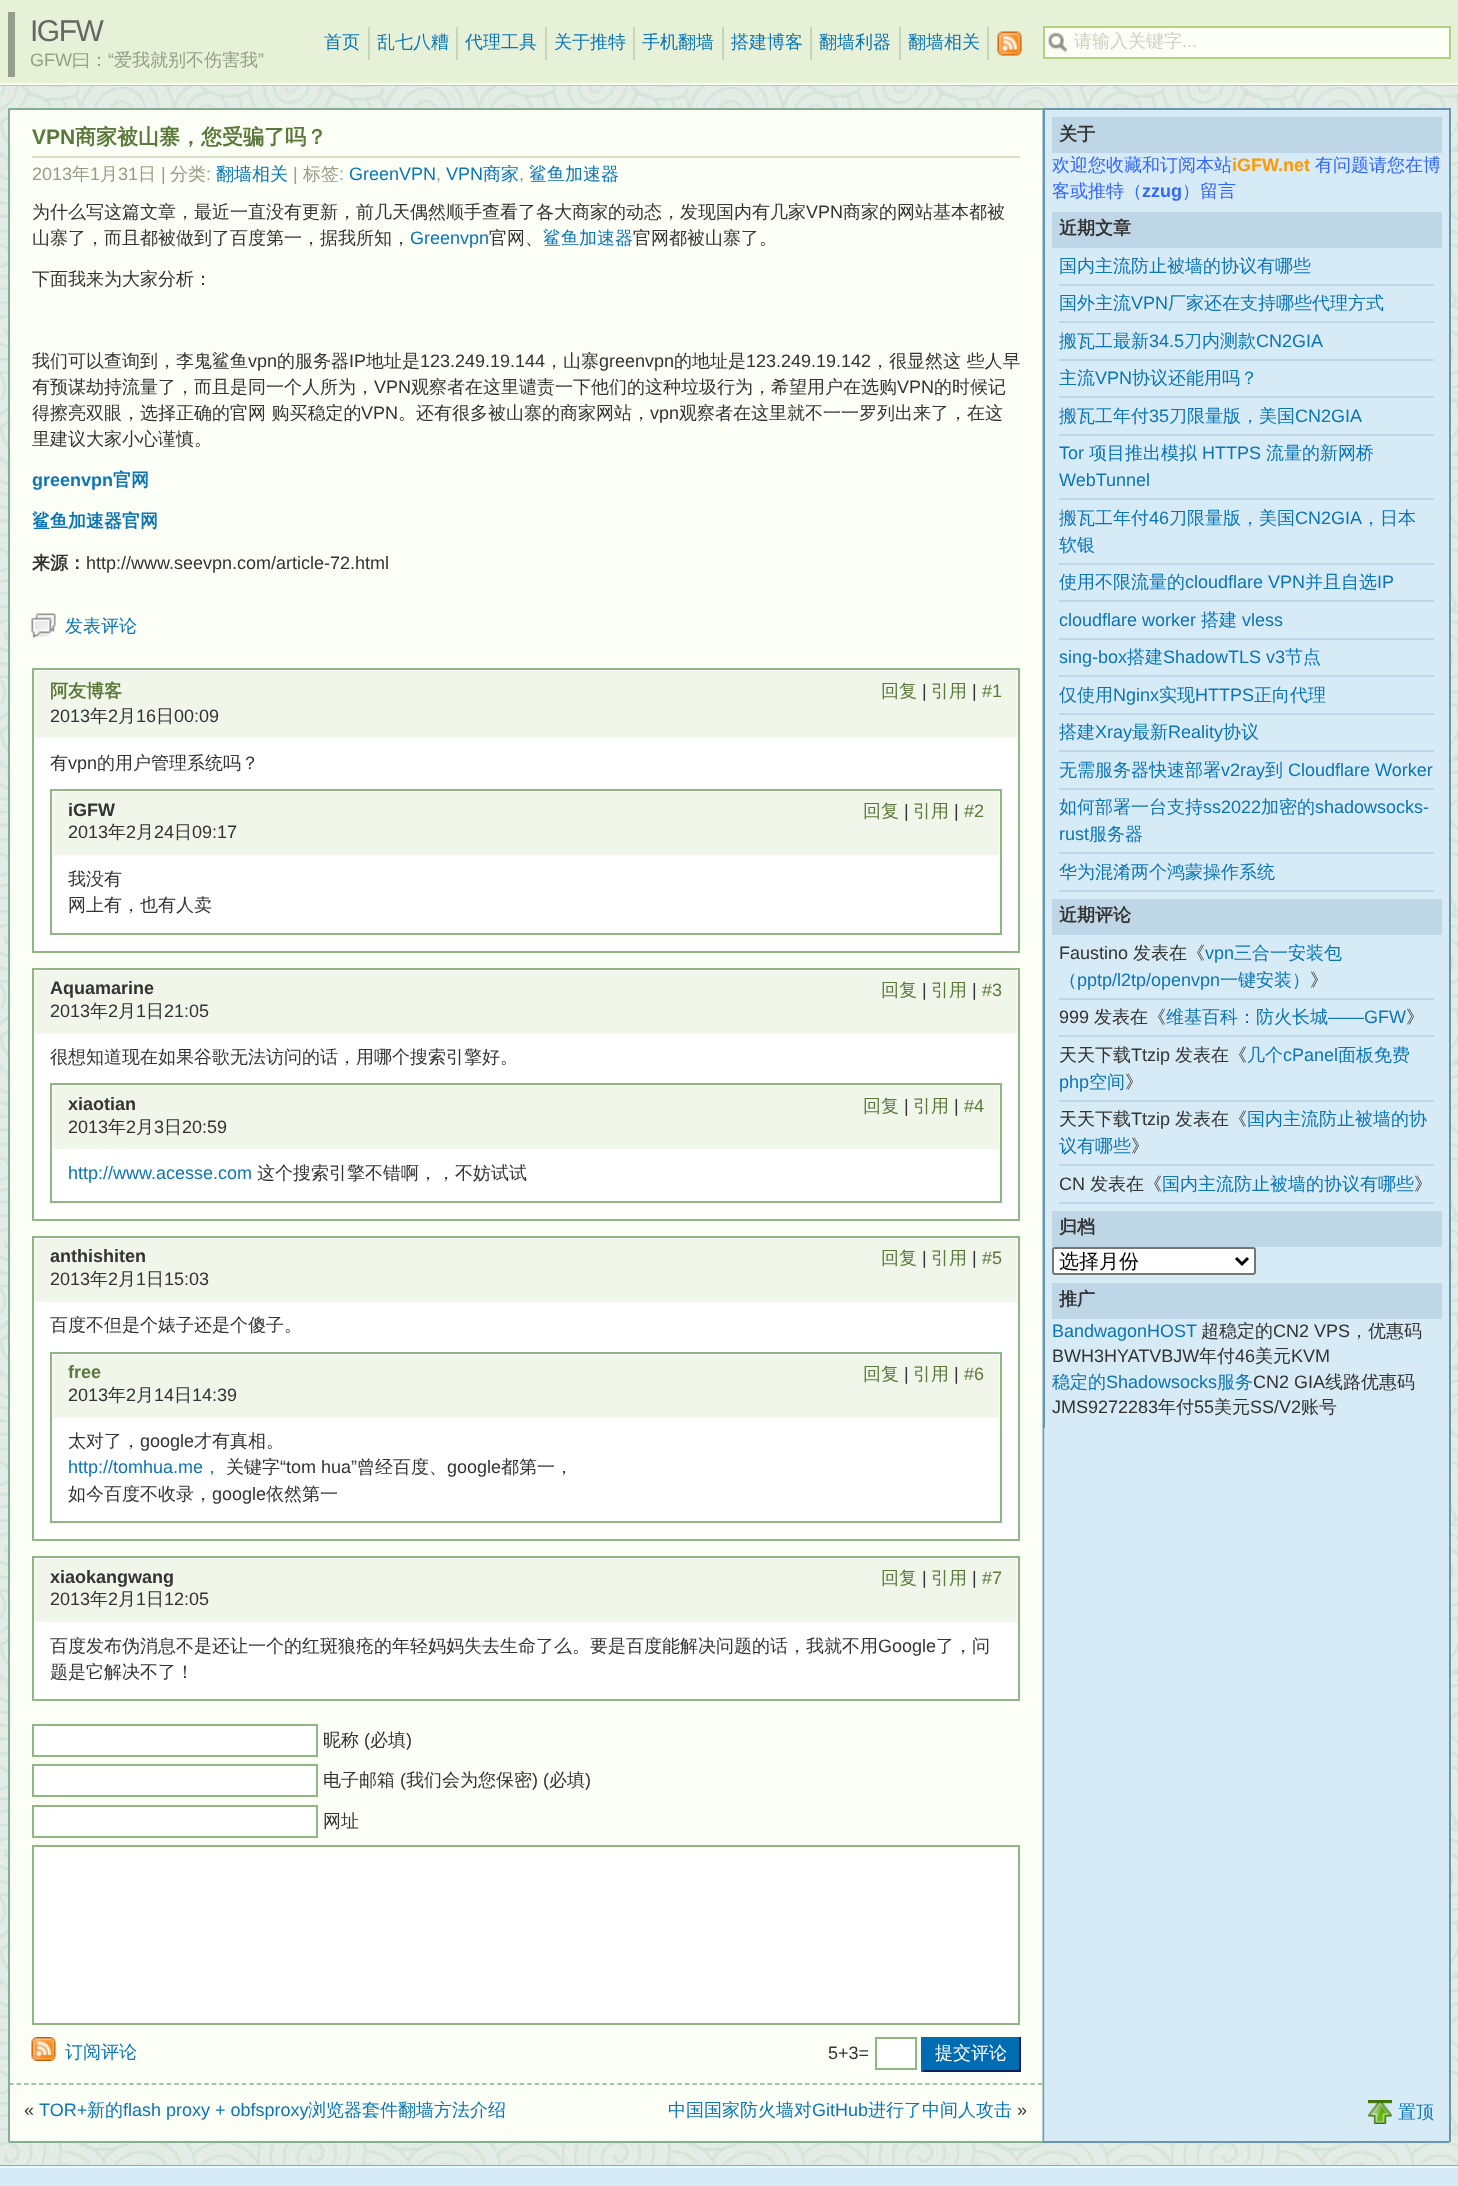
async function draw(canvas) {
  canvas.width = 1458
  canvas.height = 2186
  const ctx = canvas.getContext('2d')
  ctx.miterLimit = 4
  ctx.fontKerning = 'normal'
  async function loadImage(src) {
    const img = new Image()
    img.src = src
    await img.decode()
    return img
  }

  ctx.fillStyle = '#84b092'
  ctx.fillRect(0, 0, 1458, 2186)
  ctx.fillStyle = '#e7f1d7'
  ctx.fillRect(0, 0, 1458, 83)
  ctx.fillStyle = '#f6fff0'
  ctx.fillRect(0, 83, 1458, 2)
  ctx.fillStyle = '#959e87'
  ctx.fillRect(8, 12, 7, 65)
  ctx.letterSpacing = '-1.5px'
  ctx.font = '30px Liberation Sans'
  ctx.fillStyle = '#666'
  ctx.fillText('IGFW', 30, 41)
  ctx.letterSpacing = '0px'
  ctx.font = '18px Liberation Sans'
  ctx.fillStyle = '#959e87'
  ctx.fillText('GFW', 30, 66)
  ctx.font = '500 18px WenQuanYi Zen Hei'
  ctx.fillText('曰：', 72, 66)
  ctx.font = '18px Liberation Sans'
  ctx.fillText('“', 108, 66)
  ctx.font = '500 18px WenQuanYi Zen Hei'
  ctx.fillText('爱我就别不伤害我', 114, 66)
  ctx.font = '18px Liberation Sans'
  ctx.fillText('”', 258, 66)
  ctx.fillStyle = '#c6d6be'
  ctx.fillRect(368, 27, 2, 33)
  ctx.font = '500 18px WenQuanYi Zen Hei'
  ctx.fillStyle = '#0b75b6'
  ctx.fillText('首页', 324, 48)
  ctx.fillStyle = '#c6d6be'
  ctx.fillRect(456, 27, 2, 33)
  ctx.fillStyle = '#0b75b6'
  ctx.fillText('乱七八糟', 377, 48)
  ctx.fillStyle = '#c6d6be'
  ctx.fillRect(545, 27, 2, 33)
  ctx.fillStyle = '#0b75b6'
  ctx.fillText('代理工具', 465, 48)
  ctx.fillStyle = '#c6d6be'
  ctx.fillRect(633, 27, 2, 33)
  ctx.fillStyle = '#0b75b6'
  ctx.fillText('关于推特', 554, 48)
  ctx.fillStyle = '#c6d6be'
  ctx.fillRect(722, 27, 2, 33)
  ctx.fillStyle = '#0b75b6'
  ctx.fillText('手机翻墙', 642, 48)
  ctx.fillStyle = '#c6d6be'
  ctx.fillRect(810, 27, 2, 33)
  ctx.fillStyle = '#0b75b6'
  ctx.fillText('搭建博客', 731, 48)
  ctx.fillStyle = '#c6d6be'
  ctx.fillRect(899, 27, 2, 33)
  ctx.fillStyle = '#0b75b6'
  ctx.fillText('翻墙利器', 819, 48)
  ctx.fillStyle = '#c6d6be'
  ctx.fillRect(987, 27, 2, 33)
  ctx.fillStyle = '#0b75b6'
  ctx.fillText('翻墙相关', 908, 48)
  ctx.drawImage(await loadImage('image0.png'), 997, 31, 25, 25)
  ctx.fillStyle = '#fcfff6'
  ctx.fillRect(1045, 28, 404, 29)
  ctx.drawImage(await loadImage('image1.png'), 1048, 32, 20, 21)
  ctx.strokeStyle = '#b2d281'
  ctx.lineWidth = 2
  ctx.strokeRect(1044, 27, 406, 31)
  ctx.fillStyle = '#ccd3c5'
  ctx.fillText('请输入关键字', 1074, 47)
  ctx.font = '18px Liberation Sans'
  ctx.fillText('...', 1182, 47)
  ctx.fillStyle = '#e3ece6'
  ctx.fillRect(0, 2164, 1458, 1)
  ctx.drawImage(await loadImage('image2.png'), 0, 85, 1458, 2080)
  ctx.fillStyle = '#fcfff6'
  ctx.fillRect(10, 110, 1033, 2031)
  ctx.drawImage(await loadImage('image3.png'), 1042, 110, 407, 2031)
  ctx.fillStyle = '#84b092'
  ctx.fillRect(8, 108, 1035, 2)
  ctx.fillStyle = '#6996ac'
  ctx.fillRect(1449, 108, 2, 2034)
  ctx.fillStyle = '#84b092'
  ctx.fillRect(8, 108, 2, 2034)
  ctx.fillStyle = '#d7e0c7'
  ctx.fillRect(32, 156, 988, 2)
  ctx.font = 'bold 21px Liberation Sans'
  ctx.fillStyle = '#5c793c'
  ctx.fillText('VPN', 32, 144)
  ctx.font = 'bold 21px WenQuanYi Zen Hei'
  ctx.fillText('商家被山寨，您受骗了吗？', 75, 144)
  ctx.font = '18px Liberation Sans'
  ctx.fillStyle = '#959e87'
  ctx.fillText('2013', 32, 180)
  ctx.font = '500 18px WenQuanYi Zen Hei'
  ctx.fillText('年', 72, 180)
  ctx.font = '18px Liberation Sans'
  ctx.fillText('1', 90, 180)
  ctx.font = '500 18px WenQuanYi Zen Hei'
  ctx.fillText('月', 100, 180)
  ctx.font = '18px Liberation Sans'
  ctx.fillText('31', 118, 180)
  ctx.font = '500 18px WenQuanYi Zen Hei'
  ctx.fillText('日', 138, 180)
  ctx.font = '18px Liberation Sans'
  ctx.fillText('|', 161, 180)
  ctx.font = '500 18px WenQuanYi Zen Hei'
  ctx.fillText('分类', 170, 180)
  ctx.font = '18px Liberation Sans'
  ctx.fillText(':', 206, 180)
  ctx.font = '500 18px WenQuanYi Zen Hei'
  ctx.fillStyle = '#0b75b6'
  ctx.fillText('翻墙相关', 216, 180)
  ctx.font = '18px Liberation Sans'
  ctx.fillStyle = '#959e87'
  ctx.fillText('|', 293, 180)
  ctx.font = '500 18px WenQuanYi Zen Hei'
  ctx.fillText('标签', 303, 180)
  ctx.font = '18px Liberation Sans'
  ctx.fillText(':', 339, 180)
  ctx.fillStyle = '#0b75b6'
  ctx.fillText('GreenVPN', 349, 180)
  ctx.fillText('VPN', 446, 180)
  ctx.font = '500 18px WenQuanYi Zen Hei'
  ctx.fillText('商家', 483, 180)
  ctx.fillText('鲨鱼加速器', 529, 180)
  ctx.font = '18px Liberation Sans'
  ctx.fillStyle = '#959e87'
  ctx.fillText(',', 436, 180)
  ctx.fillText(',', 519, 180)
  ctx.font = '500 18px WenQuanYi Zen Hei'
  ctx.fillStyle = '#333'
  ctx.fillText('为什么写这篇文章，最近一直没有更新，前几天偶然顺手查看了各大商家的动态，发现国内有几家', 32, 218)
  ctx.font = '18px Liberation Sans'
  ctx.fillText('VPN', 806, 218)
  ctx.font = '500 18px WenQuanYi Zen Hei'
  ctx.fillText('商家的网站基本都被', 843, 218)
  ctx.fillText('山寨了，而且都被做到了百度第一，据我所知，', 32, 244)
  ctx.font = '18px Liberation Sans'
  ctx.fillStyle = '#0b75b6'
  ctx.fillText('Greenvpn', 410, 244)
  ctx.font = '500 18px WenQuanYi Zen Hei'
  ctx.fillStyle = '#333'
  ctx.fillText('官网、', 489, 244)
  ctx.fillStyle = '#0b75b6'
  ctx.fillText('鲨鱼加速器', 543, 244)
  ctx.fillStyle = '#333'
  ctx.fillText('官网都被山寨了。', 633, 244)
  ctx.fillText('下面我来为大家分析：', 32, 285)
  ctx.fillText('我们可以查询到，李鬼鲨鱼', 32, 367)
  ctx.font = '18px Liberation Sans'
  ctx.fillText('vpn', 248, 367)
  ctx.font = '500 18px WenQuanYi Zen Hei'
  ctx.fillText('的服务器', 277, 367)
  ctx.font = '18px Liberation Sans'
  ctx.fillText('IP', 349, 367)
  ctx.font = '500 18px WenQuanYi Zen Hei'
  ctx.fillText('地址是', 366, 367)
  ctx.font = '18px Liberation Sans'
  ctx.fillText('123.249.19.144', 420, 367)
  ctx.font = '500 18px WenQuanYi Zen Hei'
  ctx.fillText('，山寨', 545, 367)
  ctx.font = '18px Liberation Sans'
  ctx.fillText('greenvpn', 599, 367)
  ctx.font = '500 18px WenQuanYi Zen Hei'
  ctx.fillText('的地址是', 674, 367)
  ctx.font = '18px Liberation Sans'
  ctx.fillText('123.249.19.142', 746, 367)
  ctx.font = '500 18px WenQuanYi Zen Hei'
  ctx.fillText('，很显然这 些人早', 871, 367)
  ctx.fillText('有预谋劫持流量了，而且是同一个人所为，', 32, 393)
  ctx.font = '18px Liberation Sans'
  ctx.fillText('VPN', 374, 393)
  ctx.font = '500 18px WenQuanYi Zen Hei'
  ctx.fillText('观察者在这里谴责一下他们的这种垃圾行为，希望用户在选购', 411, 393)
  ctx.font = '18px Liberation Sans'
  ctx.fillText('VPN', 897, 393)
  ctx.font = '500 18px WenQuanYi Zen Hei'
  ctx.fillText('的时候记', 934, 393)
  ctx.fillText('得擦亮双眼，选择正确的官网 购买稳定的', 32, 419)
  ctx.font = '18px Liberation Sans'
  ctx.fillText('VPN', 361, 419)
  ctx.font = '500 18px WenQuanYi Zen Hei'
  ctx.fillText('。还有很多被山寨的商家网站，', 398, 419)
  ctx.font = '18px Liberation Sans'
  ctx.fillText('vpn', 650, 419)
  ctx.font = '500 18px WenQuanYi Zen Hei'
  ctx.fillText('观察者在这里就不一一罗列出来了，在这', 679, 419)
  ctx.fillText('里建议大家小心谨慎。', 32, 445)
  ctx.font = 'bold 18px Liberation Sans'
  ctx.fillStyle = '#0b75b6'
  ctx.fillText('greenvpn', 32, 486)
  ctx.font = 'bold 18px WenQuanYi Zen Hei'
  ctx.fillText('官网', 113, 486)
  ctx.fillText('鲨鱼加速器官网', 32, 527)
  ctx.fillStyle = '#333'
  ctx.fillText('来源：', 32, 569)
  ctx.font = '18px Liberation Sans'
  ctx.fillText('http://www.seevpn.com/article-72.html', 86, 569)
  ctx.drawImage(await loadImage('image4.png'), 31, 613, 25, 25)
  ctx.font = '500 18px WenQuanYi Zen Hei'
  ctx.fillStyle = '#0b75b6'
  ctx.fillText('发表评论', 65, 632)
  ctx.fillStyle = '#fff'
  ctx.beginPath()
  ctx.rect(33, 669, 986, 283)
  ctx.fill()
  ctx.strokeStyle = '#90b683'
  ctx.stroke()
  ctx.fillStyle = '#f0f6e9'
  ctx.fillRect(35, 671, 982, 67)
  ctx.font = 'bold 18px WenQuanYi Zen Hei'
  ctx.fillStyle = '#5c793c'
  ctx.fillText('阿友博客', 50, 697)
  ctx.font = '18px Liberation Sans'
  ctx.fillStyle = '#333'
  ctx.fillText('2013', 50, 722)
  ctx.font = '500 18px WenQuanYi Zen Hei'
  ctx.fillText('年', 90, 722)
  ctx.font = '18px Liberation Sans'
  ctx.fillText('2', 108, 722)
  ctx.font = '500 18px WenQuanYi Zen Hei'
  ctx.fillText('月', 118, 722)
  ctx.font = '18px Liberation Sans'
  ctx.fillText('16', 136, 722)
  ctx.font = '500 18px WenQuanYi Zen Hei'
  ctx.fillText('日', 156, 722)
  ctx.font = '18px Liberation Sans'
  ctx.fillText('00:09', 174, 722)
  ctx.font = '500 18px WenQuanYi Zen Hei'
  ctx.fillStyle = '#5c793c'
  ctx.fillText('回复', 881, 697)
  ctx.font = '18px Liberation Sans'
  ctx.fillStyle = '#333'
  ctx.fillText('|', 922, 697)
  ctx.font = '500 18px WenQuanYi Zen Hei'
  ctx.fillStyle = '#5c793c'
  ctx.fillText('引用', 931, 697)
  ctx.font = '18px Liberation Sans'
  ctx.fillStyle = '#333'
  ctx.fillText('|', 972, 697)
  ctx.fillStyle = '#5c793c'
  ctx.fillText('#1', 982, 697)
  ctx.font = '500 18px WenQuanYi Zen Hei'
  ctx.fillStyle = '#333'
  ctx.fillText('有', 50, 769)
  ctx.font = '18px Liberation Sans'
  ctx.fillText('vpn', 68, 769)
  ctx.font = '500 18px WenQuanYi Zen Hei'
  ctx.fillText('的用户管理系统吗？', 97, 769)
  ctx.strokeRect(51, 790, 950, 144)
  ctx.fillStyle = '#f0f6e9'
  ctx.fillRect(53, 792, 946, 63)
  ctx.font = 'bold 18px Liberation Sans'
  ctx.fillStyle = '#333'
  ctx.fillText('iGFW', 68, 816)
  ctx.font = '18px Liberation Sans'
  ctx.fillText('2013', 68, 838)
  ctx.font = '500 18px WenQuanYi Zen Hei'
  ctx.fillText('年', 108, 838)
  ctx.font = '18px Liberation Sans'
  ctx.fillText('2', 126, 838)
  ctx.font = '500 18px WenQuanYi Zen Hei'
  ctx.fillText('月', 136, 838)
  ctx.font = '18px Liberation Sans'
  ctx.fillText('24', 154, 838)
  ctx.font = '500 18px WenQuanYi Zen Hei'
  ctx.fillText('日', 174, 838)
  ctx.font = '18px Liberation Sans'
  ctx.fillText('09:17', 192, 838)
  ctx.font = '500 18px WenQuanYi Zen Hei'
  ctx.fillStyle = '#5c793c'
  ctx.fillText('回复', 863, 817)
  ctx.font = '18px Liberation Sans'
  ctx.fillStyle = '#333'
  ctx.fillText('|', 904, 817)
  ctx.font = '500 18px WenQuanYi Zen Hei'
  ctx.fillStyle = '#5c793c'
  ctx.fillText('引用', 913, 817)
  ctx.font = '18px Liberation Sans'
  ctx.fillStyle = '#333'
  ctx.fillText('|', 954, 817)
  ctx.fillStyle = '#5c793c'
  ctx.fillText('#2', 964, 817)
  ctx.font = '500 18px WenQuanYi Zen Hei'
  ctx.fillStyle = '#333'
  ctx.fillText('我没有', 68, 885)
  ctx.fillText('网上有，也有人卖', 68, 911)
  ctx.fillStyle = '#fff'
  ctx.beginPath()
  ctx.rect(33, 969, 986, 251)
  ctx.fill()
  ctx.stroke()
  ctx.fillStyle = '#f0f6e9'
  ctx.fillRect(35, 971, 982, 63)
  ctx.font = 'bold 18px Liberation Sans'
  ctx.fillStyle = '#333'
  ctx.fillText('Aquamarine', 50, 994)
  ctx.font = '18px Liberation Sans'
  ctx.fillText('2013', 50, 1017)
  ctx.font = '500 18px WenQuanYi Zen Hei'
  ctx.fillText('年', 90, 1017)
  ctx.font = '18px Liberation Sans'
  ctx.fillText('2', 108, 1017)
  ctx.font = '500 18px WenQuanYi Zen Hei'
  ctx.fillText('月', 118, 1017)
  ctx.font = '18px Liberation Sans'
  ctx.fillText('1', 136, 1017)
  ctx.font = '500 18px WenQuanYi Zen Hei'
  ctx.fillText('日', 146, 1017)
  ctx.font = '18px Liberation Sans'
  ctx.fillText('21:05', 164, 1017)
  ctx.font = '500 18px WenQuanYi Zen Hei'
  ctx.fillStyle = '#5c793c'
  ctx.fillText('回复', 881, 996)
  ctx.font = '18px Liberation Sans'
  ctx.fillStyle = '#333'
  ctx.fillText('|', 922, 996)
  ctx.font = '500 18px WenQuanYi Zen Hei'
  ctx.fillStyle = '#5c793c'
  ctx.fillText('引用', 931, 996)
  ctx.font = '18px Liberation Sans'
  ctx.fillStyle = '#333'
  ctx.fillText('|', 972, 996)
  ctx.fillStyle = '#5c793c'
  ctx.fillText('#3', 982, 996)
  ctx.font = '500 18px WenQuanYi Zen Hei'
  ctx.fillStyle = '#333'
  ctx.fillText('很想知道现在如果谷歌无法访问的话，用哪个搜索引擎好。', 50, 1063)
  ctx.strokeRect(51, 1084, 950, 118)
  ctx.fillStyle = '#f0f6e9'
  ctx.fillRect(53, 1086, 946, 63)
  ctx.font = 'bold 18px Liberation Sans'
  ctx.fillStyle = '#333'
  ctx.fillText('xiaotian', 68, 1110)
  ctx.font = '18px Liberation Sans'
  ctx.fillText('2013', 68, 1133)
  ctx.font = '500 18px WenQuanYi Zen Hei'
  ctx.fillText('年', 108, 1133)
  ctx.font = '18px Liberation Sans'
  ctx.fillText('2', 126, 1133)
  ctx.font = '500 18px WenQuanYi Zen Hei'
  ctx.fillText('月', 136, 1133)
  ctx.font = '18px Liberation Sans'
  ctx.fillText('3', 154, 1133)
  ctx.font = '500 18px WenQuanYi Zen Hei'
  ctx.fillText('日', 164, 1133)
  ctx.font = '18px Liberation Sans'
  ctx.fillText('20:59', 182, 1133)
  ctx.font = '500 18px WenQuanYi Zen Hei'
  ctx.fillStyle = '#5c793c'
  ctx.fillText('回复', 863, 1112)
  ctx.font = '18px Liberation Sans'
  ctx.fillStyle = '#333'
  ctx.fillText('|', 904, 1112)
  ctx.font = '500 18px WenQuanYi Zen Hei'
  ctx.fillStyle = '#5c793c'
  ctx.fillText('引用', 913, 1112)
  ctx.font = '18px Liberation Sans'
  ctx.fillStyle = '#333'
  ctx.fillText('|', 954, 1112)
  ctx.fillStyle = '#5c793c'
  ctx.fillText('#4', 964, 1112)
  ctx.fillStyle = '#0b75b6'
  ctx.fillText('http://www.acesse.com', 68, 1179)
  ctx.font = '500 18px WenQuanYi Zen Hei'
  ctx.fillStyle = '#333'
  ctx.fillText('这个搜索引擎不错啊，，不妨试试', 257, 1179)
  ctx.fillStyle = '#fff'
  ctx.beginPath()
  ctx.rect(33, 1237, 986, 303)
  ctx.fill()
  ctx.stroke()
  ctx.fillStyle = '#f0f6e9'
  ctx.fillRect(35, 1239, 982, 63)
  ctx.font = 'bold 18px Liberation Sans'
  ctx.fillStyle = '#333'
  ctx.fillText('anthishiten', 50, 1262)
  ctx.font = '18px Liberation Sans'
  ctx.fillText('2013', 50, 1285)
  ctx.font = '500 18px WenQuanYi Zen Hei'
  ctx.fillText('年', 90, 1285)
  ctx.font = '18px Liberation Sans'
  ctx.fillText('2', 108, 1285)
  ctx.font = '500 18px WenQuanYi Zen Hei'
  ctx.fillText('月', 118, 1285)
  ctx.font = '18px Liberation Sans'
  ctx.fillText('1', 136, 1285)
  ctx.font = '500 18px WenQuanYi Zen Hei'
  ctx.fillText('日', 146, 1285)
  ctx.font = '18px Liberation Sans'
  ctx.fillText('15:03', 164, 1285)
  ctx.font = '500 18px WenQuanYi Zen Hei'
  ctx.fillStyle = '#5c793c'
  ctx.fillText('回复', 881, 1264)
  ctx.font = '18px Liberation Sans'
  ctx.fillStyle = '#333'
  ctx.fillText('|', 922, 1264)
  ctx.font = '500 18px WenQuanYi Zen Hei'
  ctx.fillStyle = '#5c793c'
  ctx.fillText('引用', 931, 1264)
  ctx.font = '18px Liberation Sans'
  ctx.fillStyle = '#333'
  ctx.fillText('|', 972, 1264)
  ctx.fillStyle = '#5c793c'
  ctx.fillText('#5', 982, 1264)
  ctx.font = '500 18px WenQuanYi Zen Hei'
  ctx.fillStyle = '#333'
  ctx.fillText('百度不但是个婊子还是个傻子。', 50, 1331)
  ctx.strokeRect(51, 1353, 950, 169)
  ctx.fillStyle = '#f0f6e9'
  ctx.fillRect(53, 1355, 946, 63)
  ctx.font = 'bold 18px Liberation Sans'
  ctx.fillStyle = '#5c793c'
  ctx.fillText('free', 68, 1378)
  ctx.font = '18px Liberation Sans'
  ctx.fillStyle = '#333'
  ctx.fillText('2013', 68, 1401)
  ctx.font = '500 18px WenQuanYi Zen Hei'
  ctx.fillText('年', 108, 1401)
  ctx.font = '18px Liberation Sans'
  ctx.fillText('2', 126, 1401)
  ctx.font = '500 18px WenQuanYi Zen Hei'
  ctx.fillText('月', 136, 1401)
  ctx.font = '18px Liberation Sans'
  ctx.fillText('14', 154, 1401)
  ctx.font = '500 18px WenQuanYi Zen Hei'
  ctx.fillText('日', 174, 1401)
  ctx.font = '18px Liberation Sans'
  ctx.fillText('14:39', 192, 1401)
  ctx.font = '500 18px WenQuanYi Zen Hei'
  ctx.fillStyle = '#5c793c'
  ctx.fillText('回复', 863, 1380)
  ctx.font = '18px Liberation Sans'
  ctx.fillStyle = '#333'
  ctx.fillText('|', 904, 1380)
  ctx.font = '500 18px WenQuanYi Zen Hei'
  ctx.fillStyle = '#5c793c'
  ctx.fillText('引用', 913, 1380)
  ctx.font = '18px Liberation Sans'
  ctx.fillStyle = '#333'
  ctx.fillText('|', 954, 1380)
  ctx.fillStyle = '#5c793c'
  ctx.fillText('#6', 964, 1380)
  ctx.font = '500 18px WenQuanYi Zen Hei'
  ctx.fillStyle = '#333'
  ctx.fillText('太对了，', 68, 1447)
  ctx.font = '18px Liberation Sans'
  ctx.fillText('google', 140, 1447)
  ctx.font = '500 18px WenQuanYi Zen Hei'
  ctx.fillText('才有真相。', 194, 1447)
  ctx.font = '18px Liberation Sans'
  ctx.fillStyle = '#0b75b6'
  ctx.fillText('http://tomhua.me', 68, 1473)
  ctx.font = '500 18px WenQuanYi Zen Hei'
  ctx.fillText('，', 203, 1473)
  ctx.fillStyle = '#333'
  ctx.fillText('关键字', 226, 1473)
  ctx.font = '18px Liberation Sans'
  ctx.fillText('“tom hua”', 280, 1473)
  ctx.font = '500 18px WenQuanYi Zen Hei'
  ctx.fillText('曾经百度、', 357, 1473)
  ctx.font = '18px Liberation Sans'
  ctx.fillText('google', 447, 1473)
  ctx.font = '500 18px WenQuanYi Zen Hei'
  ctx.fillText('都第一，', 501, 1473)
  ctx.fillText('如今百度不收录，', 68, 1500)
  ctx.font = '18px Liberation Sans'
  ctx.fillText('google', 212, 1500)
  ctx.font = '500 18px WenQuanYi Zen Hei'
  ctx.fillText('依然第一', 266, 1500)
  ctx.fillStyle = '#fff'
  ctx.beginPath()
  ctx.rect(33, 1557, 986, 143)
  ctx.fill()
  ctx.stroke()
  ctx.fillStyle = '#f0f6e9'
  ctx.fillRect(35, 1559, 982, 63)
  ctx.font = 'bold 18px Liberation Sans'
  ctx.fillStyle = '#333'
  ctx.fillText('xiaokangwang', 50, 1583)
  ctx.font = '18px Liberation Sans'
  ctx.fillText('2013', 50, 1605)
  ctx.font = '500 18px WenQuanYi Zen Hei'
  ctx.fillText('年', 90, 1605)
  ctx.font = '18px Liberation Sans'
  ctx.fillText('2', 108, 1605)
  ctx.font = '500 18px WenQuanYi Zen Hei'
  ctx.fillText('月', 118, 1605)
  ctx.font = '18px Liberation Sans'
  ctx.fillText('1', 136, 1605)
  ctx.font = '500 18px WenQuanYi Zen Hei'
  ctx.fillText('日', 146, 1605)
  ctx.font = '18px Liberation Sans'
  ctx.fillText('12:05', 164, 1605)
  ctx.font = '500 18px WenQuanYi Zen Hei'
  ctx.fillStyle = '#5c793c'
  ctx.fillText('回复', 881, 1584)
  ctx.font = '18px Liberation Sans'
  ctx.fillStyle = '#333'
  ctx.fillText('|', 922, 1584)
  ctx.font = '500 18px WenQuanYi Zen Hei'
  ctx.fillStyle = '#5c793c'
  ctx.fillText('引用', 931, 1584)
  ctx.font = '18px Liberation Sans'
  ctx.fillStyle = '#333'
  ctx.fillText('|', 972, 1584)
  ctx.fillStyle = '#5c793c'
  ctx.fillText('#7', 982, 1584)
  ctx.font = '500 18px WenQuanYi Zen Hei'
  ctx.fillStyle = '#333'
  ctx.fillText('百度发布伪消息不是还让一个的红斑狼疮的年轻妈妈失去生命了么。要是百度能解决问题的话，我就不用', 50, 1652)
  ctx.font = '18px Liberation Sans'
  ctx.fillText('Google', 878, 1652)
  ctx.font = '500 18px WenQuanYi Zen Hei'
  ctx.fillText('了，问', 936, 1652)
  ctx.fillText('题是它解决不了！', 50, 1678)
  ctx.fillStyle = '#fff'
  ctx.beginPath()
  ctx.rect(33, 1725, 284, 31)
  ctx.fill()
  ctx.stroke()
  ctx.fillStyle = '#333'
  ctx.fillText('昵称', 323, 1746)
  ctx.font = '18px Liberation Sans'
  ctx.fillText('(', 364, 1746)
  ctx.font = '500 18px WenQuanYi Zen Hei'
  ctx.fillText('必填', 370, 1746)
  ctx.font = '18px Liberation Sans'
  ctx.fillText(')', 406, 1746)
  ctx.fillStyle = '#fff'
  ctx.beginPath()
  ctx.rect(33, 1765, 284, 31)
  ctx.fill()
  ctx.stroke()
  ctx.font = '500 18px WenQuanYi Zen Hei'
  ctx.fillStyle = '#333'
  ctx.fillText('电子邮箱', 323, 1786)
  ctx.font = '18px Liberation Sans'
  ctx.fillText('(', 400, 1786)
  ctx.font = '500 18px WenQuanYi Zen Hei'
  ctx.fillText('我们会为您保密', 406, 1786)
  ctx.font = '18px Liberation Sans'
  ctx.fillText(') (', 532, 1786)
  ctx.font = '500 18px WenQuanYi Zen Hei'
  ctx.fillText('必填', 549, 1786)
  ctx.font = '18px Liberation Sans'
  ctx.fillText(')', 585, 1786)
  ctx.fillStyle = '#fff'
  ctx.beginPath()
  ctx.rect(33, 1806, 284, 31)
  ctx.fill()
  ctx.stroke()
  ctx.font = '500 18px WenQuanYi Zen Hei'
  ctx.fillStyle = '#333'
  ctx.fillText('网址', 323, 1827)
  ctx.fillStyle = '#fff'
  ctx.beginPath()
  ctx.rect(33, 1846, 986, 178)
  ctx.fill()
  ctx.stroke()
  ctx.drawImage(await loadImage('image5.png'), 31, 2037, 25, 24)
  ctx.fillStyle = '#0b75b6'
  ctx.fillText('订阅评论', 65, 2058)
  ctx.font = '18px Liberation Sans'
  ctx.fillStyle = '#333'
  ctx.fillText('5+3=', 828, 2059)
  ctx.fillStyle = '#fff'
  ctx.beginPath()
  ctx.rect(876, 2038, 40, 31)
  ctx.fill()
  ctx.stroke()
  ctx.fillStyle = '#006cb1'
  ctx.fillRect(923, 2037, 96, 33)
  ctx.fillStyle = '#0e1f5b'
  ctx.fillRect(1019, 2037, 2, 35)
  ctx.fillRect(921, 2070, 99, 2)
  ctx.fillStyle = '#006cb1'
  ctx.fillRect(921, 2037, 2, 35)
  ctx.font = '500 18px WenQuanYi Zen Hei'
  ctx.fillStyle = '#fff'
  ctx.fillText('提交评论', 935, 2059)
  ctx.fillStyle = '#6996ac'
  ctx.fillRect(1043, 108, 406, 2)
  ctx.fillRect(1043, 108, 2, 1320)
  ctx.fillStyle = '#bed6e5'
  ctx.fillRect(1052, 117, 390, 36)
  ctx.font = 'bold 18px WenQuanYi Zen Hei'
  ctx.fillStyle = '#333'
  ctx.fillText('关于', 1059, 140)
  ctx.font = '500 18px WenQuanYi Zen Hei'
  ctx.fillStyle = '#36f'
  ctx.fillText('欢迎您收藏和订阅本站', 1052, 171)
  ctx.font = 'bold 18px Liberation Sans'
  ctx.fillStyle = '#f90'
  ctx.fillText('iGFW.net', 1232, 171)
  ctx.font = '500 18px WenQuanYi Zen Hei'
  ctx.fillStyle = '#36f'
  ctx.fillText('有问题请您在博', 1315, 171)
  ctx.fillText('客或推特（', 1052, 197)
  ctx.font = 'bold 18px Liberation Sans'
  ctx.fillText('zzug', 1142, 197)
  ctx.font = '500 18px WenQuanYi Zen Hei'
  ctx.fillText('）留言', 1182, 197)
  ctx.fillStyle = '#bed6e5'
  ctx.fillRect(1052, 212, 390, 36)
  ctx.font = 'bold 18px WenQuanYi Zen Hei'
  ctx.fillStyle = '#333'
  ctx.fillText('近期文章', 1059, 234)
  ctx.fillStyle = '#bed6e5'
  ctx.fillRect(1059, 284, 375, 2)
  ctx.font = '500 18px WenQuanYi Zen Hei'
  ctx.fillStyle = '#0b75b6'
  ctx.fillText('国内主流防止被墙的协议有哪些', 1059, 272)
  ctx.fillStyle = '#bed6e5'
  ctx.fillRect(1059, 321, 375, 2)
  ctx.fillStyle = '#0b75b6'
  ctx.fillText('国外主流', 1059, 309)
  ctx.font = '18px Liberation Sans'
  ctx.fillText('VPN', 1131, 309)
  ctx.font = '500 18px WenQuanYi Zen Hei'
  ctx.fillText('厂家还在支持哪些代理方式', 1168, 309)
  ctx.fillStyle = '#bed6e5'
  ctx.fillRect(1059, 359, 375, 2)
  ctx.fillStyle = '#0b75b6'
  ctx.fillText('搬瓦工最新', 1059, 347)
  ctx.font = '18px Liberation Sans'
  ctx.fillText('34.5', 1149, 347)
  ctx.font = '500 18px WenQuanYi Zen Hei'
  ctx.fillText('刀内测款', 1184, 347)
  ctx.font = '18px Liberation Sans'
  ctx.fillText('CN2GIA', 1256, 347)
  ctx.fillStyle = '#bed6e5'
  ctx.fillRect(1059, 396, 375, 2)
  ctx.font = '500 18px WenQuanYi Zen Hei'
  ctx.fillStyle = '#0b75b6'
  ctx.fillText('主流', 1059, 384)
  ctx.font = '18px Liberation Sans'
  ctx.fillText('VPN', 1095, 384)
  ctx.font = '500 18px WenQuanYi Zen Hei'
  ctx.fillText('协议还能用吗？', 1132, 384)
  ctx.fillStyle = '#bed6e5'
  ctx.fillRect(1059, 434, 375, 2)
  ctx.fillStyle = '#0b75b6'
  ctx.fillText('搬瓦工年付', 1059, 422)
  ctx.font = '18px Liberation Sans'
  ctx.fillText('35', 1149, 422)
  ctx.font = '500 18px WenQuanYi Zen Hei'
  ctx.fillText('刀限量版，美国', 1169, 422)
  ctx.font = '18px Liberation Sans'
  ctx.fillText('CN2GIA', 1295, 422)
  ctx.fillStyle = '#bed6e5'
  ctx.fillRect(1059, 498, 375, 2)
  ctx.fillStyle = '#0b75b6'
  ctx.fillText('Tor', 1059, 459)
  ctx.font = '500 18px WenQuanYi Zen Hei'
  ctx.fillText('项目推出模拟', 1089, 459)
  ctx.font = '18px Liberation Sans'
  ctx.fillText('HTTPS', 1202, 459)
  ctx.font = '500 18px WenQuanYi Zen Hei'
  ctx.fillText('流量的新网桥', 1266, 459)
  ctx.font = '18px Liberation Sans'
  ctx.fillText('WebTunnel', 1059, 486)
  ctx.fillStyle = '#bed6e5'
  ctx.fillRect(1059, 563, 375, 2)
  ctx.font = '500 18px WenQuanYi Zen Hei'
  ctx.fillStyle = '#0b75b6'
  ctx.fillText('搬瓦工年付', 1059, 524)
  ctx.font = '18px Liberation Sans'
  ctx.fillText('46', 1149, 524)
  ctx.font = '500 18px WenQuanYi Zen Hei'
  ctx.fillText('刀限量版，美国', 1169, 524)
  ctx.font = '18px Liberation Sans'
  ctx.fillText('CN2GIA', 1295, 524)
  ctx.font = '500 18px WenQuanYi Zen Hei'
  ctx.fillText('，日本', 1362, 524)
  ctx.fillText('软银', 1059, 551)
  ctx.fillStyle = '#bed6e5'
  ctx.fillRect(1059, 600, 375, 2)
  ctx.fillStyle = '#0b75b6'
  ctx.fillText('使用不限流量的', 1059, 588)
  ctx.font = '18px Liberation Sans'
  ctx.fillText('cloudflare VPN', 1185, 588)
  ctx.font = '500 18px WenQuanYi Zen Hei'
  ctx.fillText('并且自选', 1305, 588)
  ctx.font = '18px Liberation Sans'
  ctx.fillText('IP', 1377, 588)
  ctx.fillStyle = '#bed6e5'
  ctx.fillRect(1059, 638, 375, 2)
  ctx.fillStyle = '#0b75b6'
  ctx.fillText('cloudflare worker', 1059, 626)
  ctx.font = '500 18px WenQuanYi Zen Hei'
  ctx.fillText('搭建', 1201, 626)
  ctx.font = '18px Liberation Sans'
  ctx.fillText('vless', 1242, 626)
  ctx.fillStyle = '#bed6e5'
  ctx.fillRect(1059, 675, 375, 2)
  ctx.fillStyle = '#0b75b6'
  ctx.fillText('sing-box', 1059, 663)
  ctx.font = '500 18px WenQuanYi Zen Hei'
  ctx.fillText('搭建', 1127, 663)
  ctx.font = '18px Liberation Sans'
  ctx.fillText('ShadowTLS v3', 1163, 663)
  ctx.font = '500 18px WenQuanYi Zen Hei'
  ctx.fillText('节点', 1285, 663)
  ctx.fillStyle = '#bed6e5'
  ctx.fillRect(1059, 713, 375, 2)
  ctx.fillStyle = '#0b75b6'
  ctx.fillText('仅使用', 1059, 701)
  ctx.font = '18px Liberation Sans'
  ctx.fillText('Nginx', 1113, 701)
  ctx.font = '500 18px WenQuanYi Zen Hei'
  ctx.fillText('实现', 1159, 701)
  ctx.font = '18px Liberation Sans'
  ctx.fillText('HTTPS', 1195, 701)
  ctx.font = '500 18px WenQuanYi Zen Hei'
  ctx.fillText('正向代理', 1254, 701)
  ctx.fillStyle = '#bed6e5'
  ctx.fillRect(1059, 750, 375, 2)
  ctx.fillStyle = '#0b75b6'
  ctx.fillText('搭建', 1059, 738)
  ctx.font = '18px Liberation Sans'
  ctx.fillText('Xray', 1095, 738)
  ctx.font = '500 18px WenQuanYi Zen Hei'
  ctx.fillText('最新', 1132, 738)
  ctx.font = '18px Liberation Sans'
  ctx.fillText('Reality', 1168, 738)
  ctx.font = '500 18px WenQuanYi Zen Hei'
  ctx.fillText('协议', 1223, 738)
  ctx.fillStyle = '#bed6e5'
  ctx.fillRect(1059, 788, 375, 2)
  ctx.fillStyle = '#0b75b6'
  ctx.fillText('无需服务器快速部署', 1059, 776)
  ctx.font = '18px Liberation Sans'
  ctx.fillText('v2ray', 1221, 776)
  ctx.font = '500 18px WenQuanYi Zen Hei'
  ctx.fillText('到', 1265, 776)
  ctx.font = '18px Liberation Sans'
  ctx.fillText('Cloudflare Worker', 1288, 776)
  ctx.fillStyle = '#bed6e5'
  ctx.fillRect(1059, 852, 375, 2)
  ctx.font = '500 18px WenQuanYi Zen Hei'
  ctx.fillStyle = '#0b75b6'
  ctx.fillText('如何部署一台支持', 1059, 813)
  ctx.font = '18px Liberation Sans'
  ctx.fillText('ss2022', 1203, 813)
  ctx.font = '500 18px WenQuanYi Zen Hei'
  ctx.fillText('加密的', 1261, 813)
  ctx.font = '18px Liberation Sans'
  ctx.fillText('shadowsocks-', 1315, 813)
  ctx.fillText('rust', 1059, 840)
  ctx.font = '500 18px WenQuanYi Zen Hei'
  ctx.fillText('服务器', 1089, 840)
  ctx.fillStyle = '#bed6e5'
  ctx.fillRect(1059, 890, 375, 2)
  ctx.fillStyle = '#0b75b6'
  ctx.fillText('华为混淆两个鸿蒙操作系统', 1059, 878)
  ctx.fillStyle = '#bed6e5'
  ctx.fillRect(1052, 899, 390, 36)
  ctx.font = 'bold 18px WenQuanYi Zen Hei'
  ctx.fillStyle = '#333'
  ctx.fillText('近期评论', 1059, 921)
  ctx.fillStyle = '#bed6e5'
  ctx.fillRect(1059, 998, 375, 2)
  ctx.font = '18px Liberation Sans'
  ctx.fillStyle = '#333'
  ctx.fillText('Faustino', 1059, 959)
  ctx.font = '500 18px WenQuanYi Zen Hei'
  ctx.fillText('发表在《', 1133, 959)
  ctx.font = '18px Liberation Sans'
  ctx.fillStyle = '#0b75b6'
  ctx.fillText('vpn', 1205, 959)
  ctx.font = '500 18px WenQuanYi Zen Hei'
  ctx.fillText('三合一安装包', 1234, 959)
  ctx.fillText('（', 1059, 986)
  ctx.font = '18px Liberation Sans'
  ctx.fillText('pptp/l2tp/openvpn', 1077, 986)
  ctx.font = '500 18px WenQuanYi Zen Hei'
  ctx.fillText('一键安装）', 1220, 986)
  ctx.fillStyle = '#333'
  ctx.fillText('》', 1310, 986)
  ctx.fillStyle = '#bed6e5'
  ctx.fillRect(1059, 1035, 375, 2)
  ctx.font = '18px Liberation Sans'
  ctx.fillStyle = '#333'
  ctx.fillText('999', 1059, 1023)
  ctx.font = '500 18px WenQuanYi Zen Hei'
  ctx.fillText('发表在《', 1094, 1023)
  ctx.fillStyle = '#0b75b6'
  ctx.fillText('维基百科：防火长城', 1166, 1023)
  ctx.font = '18px Liberation Sans'
  ctx.fillText('——GFW', 1328, 1023)
  ctx.font = '500 18px WenQuanYi Zen Hei'
  ctx.fillStyle = '#333'
  ctx.fillText('》', 1406, 1023)
  ctx.fillStyle = '#bed6e5'
  ctx.fillRect(1059, 1100, 375, 2)
  ctx.fillStyle = '#333'
  ctx.fillText('天天下载', 1059, 1061)
  ctx.font = '18px Liberation Sans'
  ctx.fillText('Ttzip', 1131, 1061)
  ctx.font = '500 18px WenQuanYi Zen Hei'
  ctx.fillText('发表在《', 1175, 1061)
  ctx.fillStyle = '#0b75b6'
  ctx.fillText('几个', 1247, 1061)
  ctx.font = '18px Liberation Sans'
  ctx.fillText('cPanel', 1283, 1061)
  ctx.font = '500 18px WenQuanYi Zen Hei'
  ctx.fillText('面板免费', 1338, 1061)
  ctx.font = '18px Liberation Sans'
  ctx.fillText('php', 1059, 1088)
  ctx.font = '500 18px WenQuanYi Zen Hei'
  ctx.fillText('空间', 1089, 1088)
  ctx.fillStyle = '#333'
  ctx.fillText('》', 1125, 1088)
  ctx.fillStyle = '#bed6e5'
  ctx.fillRect(1059, 1164, 375, 2)
  ctx.fillStyle = '#333'
  ctx.fillText('天天下载', 1059, 1125)
  ctx.font = '18px Liberation Sans'
  ctx.fillText('Ttzip', 1131, 1125)
  ctx.font = '500 18px WenQuanYi Zen Hei'
  ctx.fillText('发表在《', 1175, 1125)
  ctx.fillStyle = '#0b75b6'
  ctx.fillText('国内主流防止被墙的协', 1247, 1125)
  ctx.fillText('议有哪些', 1059, 1152)
  ctx.fillStyle = '#333'
  ctx.fillText('》', 1131, 1152)
  ctx.fillStyle = '#bed6e5'
  ctx.fillRect(1059, 1202, 375, 2)
  ctx.font = '18px Liberation Sans'
  ctx.fillStyle = '#333'
  ctx.fillText('CN', 1059, 1190)
  ctx.font = '500 18px WenQuanYi Zen Hei'
  ctx.fillText('发表在《', 1090, 1190)
  ctx.fillStyle = '#0b75b6'
  ctx.fillText('国内主流防止被墙的协议有哪些', 1162, 1190)
  ctx.fillStyle = '#333'
  ctx.fillText('》', 1414, 1190)
  ctx.fillStyle = '#bed6e5'
  ctx.fillRect(1052, 1211, 390, 36)
  ctx.font = 'bold 18px WenQuanYi Zen Hei'
  ctx.fillStyle = '#333'
  ctx.fillText('归档', 1059, 1233)
  ctx.fillStyle = '#fff'
  ctx.beginPath()
  ctx.roundRect(1053, 1248, 202, 26, 2)
  ctx.fill()
  ctx.strokeStyle = '#767676'
  ctx.stroke()
  ctx.beginPath()
  ctx.moveTo(1236, 1258)
  ctx.lineTo(1242, 1264)
  ctx.lineTo(1248, 1258)
  ctx.strokeStyle = '#000'
  ctx.lineWidth = 3
  ctx.stroke()
  ctx.font = '500 20px WenQuanYi Zen Hei'
  ctx.fillStyle = '#000'
  ctx.fillText('选择月份', 1059, 1268)
  ctx.fillStyle = '#bed6e5'
  ctx.fillRect(1052, 1283, 390, 36)
  ctx.font = 'bold 18px WenQuanYi Zen Hei'
  ctx.fillStyle = '#333'
  ctx.fillText('推广', 1059, 1305)
  ctx.font = '18px Liberation Sans'
  ctx.fillStyle = '#0b75b6'
  ctx.fillText('BandwagonHOST', 1052, 1337)
  ctx.font = '500 18px WenQuanYi Zen Hei'
  ctx.fillStyle = '#333'
  ctx.fillText('超稳定的', 1201, 1337)
  ctx.font = '18px Liberation Sans'
  ctx.fillText('CN2 VPS', 1273, 1337)
  ctx.font = '500 18px WenQuanYi Zen Hei'
  ctx.fillText('，优惠码', 1350, 1337)
  ctx.font = '18px Liberation Sans'
  ctx.fillText('BWH3HYATVBJW', 1052, 1362)
  ctx.font = '500 18px WenQuanYi Zen Hei'
  ctx.fillText('年付', 1199, 1362)
  ctx.font = '18px Liberation Sans'
  ctx.fillText('46', 1235, 1362)
  ctx.font = '500 18px WenQuanYi Zen Hei'
  ctx.fillText('美元', 1255, 1362)
  ctx.font = '18px Liberation Sans'
  ctx.fillText('KVM', 1291, 1362)
  ctx.font = '500 18px WenQuanYi Zen Hei'
  ctx.fillStyle = '#0b75b6'
  ctx.fillText('稳定的', 1052, 1388)
  ctx.font = '18px Liberation Sans'
  ctx.fillText('Shadowsocks', 1106, 1388)
  ctx.font = '500 18px WenQuanYi Zen Hei'
  ctx.fillText('服务', 1217, 1388)
  ctx.font = '18px Liberation Sans'
  ctx.fillStyle = '#333'
  ctx.fillText('CN2 GIA', 1253, 1388)
  ctx.font = '500 18px WenQuanYi Zen Hei'
  ctx.fillText('线路优惠码', 1325, 1388)
  ctx.font = '18px Liberation Sans'
  ctx.fillText('JMS9272283', 1052, 1413)
  ctx.font = '500 18px WenQuanYi Zen Hei'
  ctx.fillText('年付', 1158, 1413)
  ctx.font = '18px Liberation Sans'
  ctx.fillText('55', 1194, 1413)
  ctx.font = '500 18px WenQuanYi Zen Hei'
  ctx.fillText('美元', 1214, 1413)
  ctx.font = '18px Liberation Sans'
  ctx.fillText('SS/V2', 1250, 1413)
  ctx.font = '500 18px WenQuanYi Zen Hei'
  ctx.fillText('账号', 1301, 1413)
  ctx.fillStyle = '#84b092'
  ctx.fillRect(9, 2141, 1034, 2)
  ctx.beginPath()
  ctx.moveTo(9, 2084)
  ctx.lineTo(1042.5, 2084)
  ctx.strokeStyle = '#84b092'
  ctx.lineWidth = 1.5
  ctx.setLineDash([4.5, 3.01])
  ctx.stroke()
  ctx.font = '18px Liberation Sans'
  ctx.fillStyle = '#333'
  ctx.fillText('«', 24, 2116)
  ctx.fillStyle = '#0b75b6'
  ctx.fillText('TOR+', 39, 2116)
  ctx.font = '500 18px WenQuanYi Zen Hei'
  ctx.fillText('新的', 87, 2116)
  ctx.font = '18px Liberation Sans'
  ctx.fillText('flash proxy + obfsproxy', 123, 2116)
  ctx.font = '500 18px WenQuanYi Zen Hei'
  ctx.fillText('浏览器套件翻墙方法介绍', 308, 2116)
  ctx.fillText('中国国家防火墙对', 668, 2116)
  ctx.font = '18px Liberation Sans'
  ctx.fillText('GitHub', 812, 2116)
  ctx.font = '500 18px WenQuanYi Zen Hei'
  ctx.fillText('进行了中间人攻击', 868, 2116)
  ctx.font = '18px Liberation Sans'
  ctx.fillStyle = '#333'
  ctx.fillText('»', 1017, 2116)
  ctx.fillStyle = '#6996ac'
  ctx.fillRect(1043, 2141, 406, 2)
  ctx.drawImage(await loadImage('image6.png'), 1368, 2100, 24, 24)
  ctx.font = '500 18px WenQuanYi Zen Hei'
  ctx.fillStyle = '#0b75b6'
  ctx.fillText('置顶', 1398, 2118)
  ctx.fillStyle = '#89a6c6'
  ctx.fillRect(0, 2165, 1458, 1)
  ctx.fillStyle = '#d6ebf5'
  ctx.fillRect(0, 2168, 1458, 18)
  ctx.fillStyle = '#e6fcff'
  ctx.fillRect(0, 2166, 1458, 2)
}

draw(document.querySelector('canvas'))
